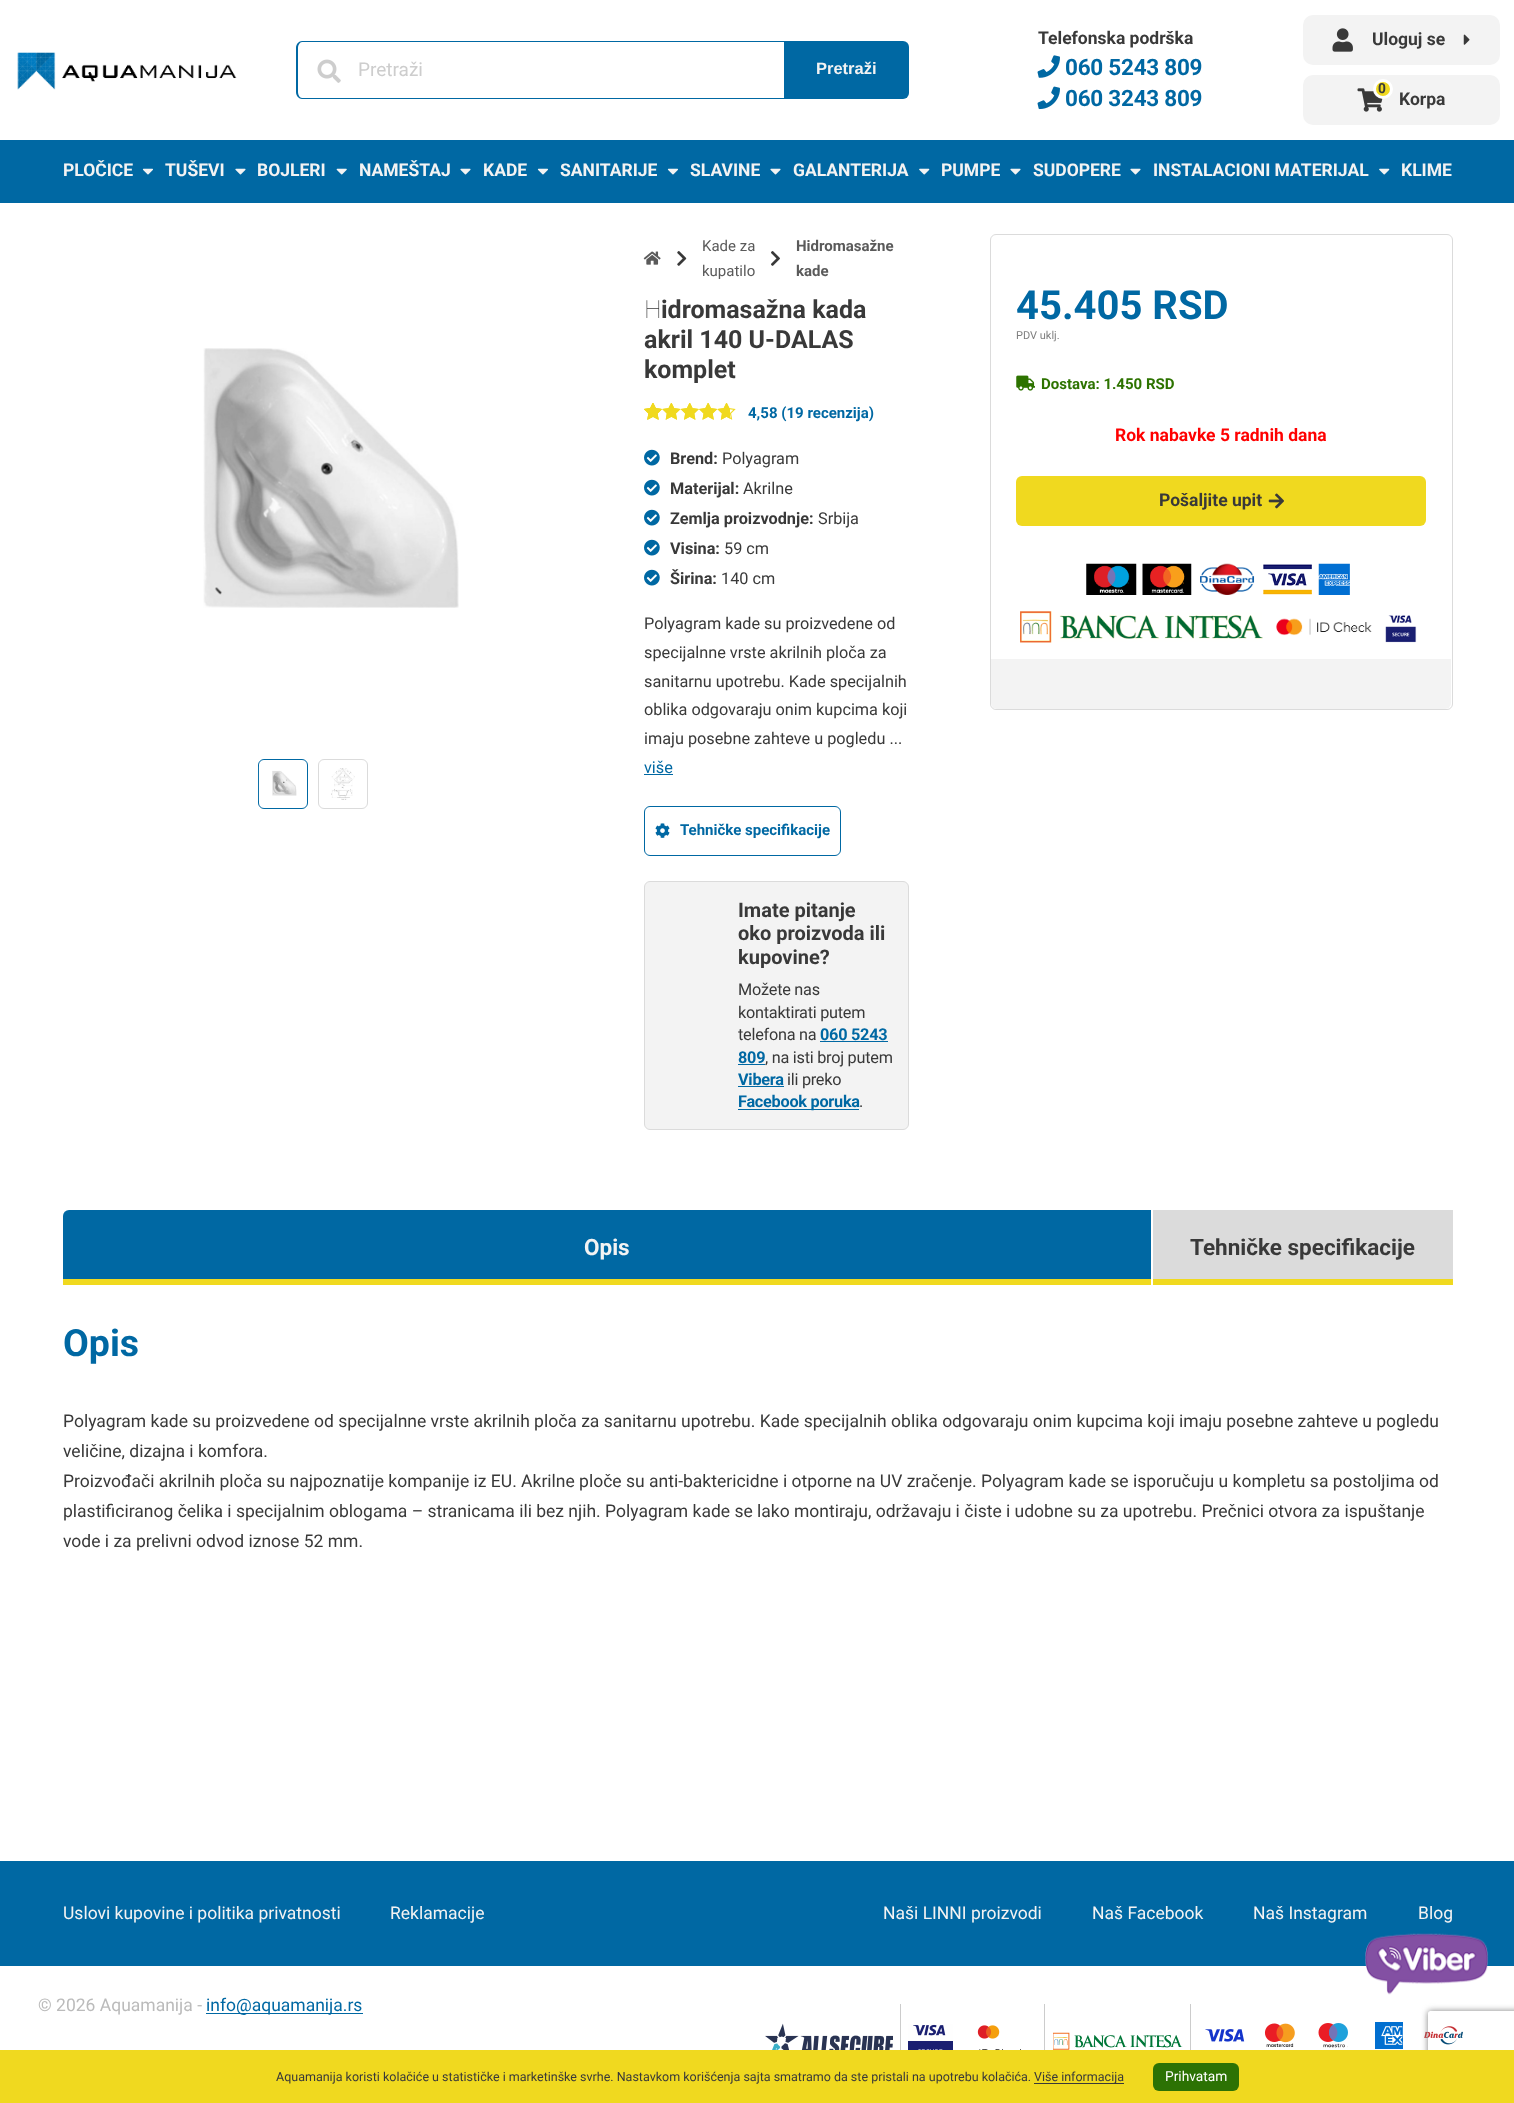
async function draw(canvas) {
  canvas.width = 1514
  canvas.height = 2103
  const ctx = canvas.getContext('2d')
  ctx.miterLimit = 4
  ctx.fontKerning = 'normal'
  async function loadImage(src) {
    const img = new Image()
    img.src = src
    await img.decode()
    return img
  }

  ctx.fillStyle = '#fff'
  ctx.fillRect(0, 0, 1514, 2103)
  ctx.drawImage(await loadImage('image0.png'), 17, 52, 220, 38)
  ctx.fillStyle = '#0068a3'
  ctx.beginPath()
  ctx.moveTo(302, 41)
  ctx.lineTo(784, 41)
  ctx.lineTo(784, 99)
  ctx.lineTo(302, 99)
  ctx.bezierCurveTo(299, 99, 296, 96, 296, 92)
  ctx.lineTo(296, 48)
  ctx.bezierCurveTo(296, 44, 299, 41, 302, 41)
  ctx.closePath()
  ctx.moveTo(302, 42)
  ctx.lineTo(784, 42)
  ctx.lineTo(784, 98)
  ctx.lineTo(302, 98)
  ctx.bezierCurveTo(300, 98, 298, 95, 298, 92)
  ctx.lineTo(298, 48)
  ctx.bezierCurveTo(298, 45, 300, 42, 302, 42)
  ctx.closePath()
  ctx.fill('evenodd')
  ctx.drawImage(await loadImage('image1.png'), 317, 59, 24, 24)
  ctx.font = '19px Roboto'
  ctx.fillStyle = '#cdcdcd'
  ctx.fillText('Pretraži', 358, 76)
  ctx.fillStyle = '#0068a3'
  ctx.beginPath()
  ctx.roundRect(784, 41, 125, 58, [0, 6, 6, 0])
  ctx.fill()
  ctx.font = 'bold 16.5px Liberation Sans'
  ctx.fillStyle = '#f3f3f3'
  ctx.fillText('Pretraži', 816, 74)
  ctx.font = 'bold 17.5px Roboto'
  ctx.fillStyle = '#393939'
  ctx.fillText('Telefonska podrška', 1038, 44)
  ctx.drawImage(await loadImage('image2.png'), 1037, 55, 23, 23)
  ctx.letterSpacing = '-0.25px'
  ctx.font = 'bold 22.5px Roboto'
  ctx.fillStyle = '#0068a3'
  ctx.fillText('060 5243 809', 1065, 75)
  ctx.drawImage(await loadImage('image3.png'), 1037, 86, 23, 24)
  ctx.fillText('060 3243 809', 1065, 106)
  ctx.fillStyle = '#f3f3f3'
  ctx.beginPath()
  ctx.roundRect(1303, 15, 197, 50, 10)
  ctx.fill()
  ctx.drawImage(await loadImage('image4.png'), 1332, 28, 21, 24)
  ctx.letterSpacing = '0px'
  ctx.font = 'bold 17.5px Roboto'
  ctx.fillStyle = '#393939'
  ctx.fillText('Uloguj se', 1372, 45)
  ctx.drawImage(await loadImage('image5.png'), 1463, 34, 7, 11)
  ctx.fillStyle = '#f3f3f3'
  ctx.beginPath()
  ctx.roundRect(1303, 75, 197, 50, 10)
  ctx.fill()
  ctx.drawImage(await loadImage('image6.png'), 1357, 88, 26, 24)
  ctx.fillStyle = '#f0d91f'
  ctx.beginPath()
  ctx.arc(1383, 89, 8.5, 0, 2 * Math.PI)
  ctx.fill()
  ctx.strokeStyle = '#fff'
  ctx.lineWidth = 3
  ctx.stroke()
  ctx.font = 'bold 13.75px Roboto'
  ctx.fillStyle = '#393939'
  ctx.fillText('0', 1378, 93)
  ctx.font = 'bold 17.5px Roboto'
  ctx.fillText('Korpa', 1399, 105)
  ctx.fillStyle = '#0068a3'
  ctx.fillRect(0, 140, 1514, 63)
  ctx.fillStyle = '#f3f3f3'
  ctx.fillText('PLOČICE', 63, 176)
  ctx.drawImage(await loadImage('image7.png'), 142, 168, 11, 7)
  ctx.fillText('TUŠEVI', 165, 176)
  ctx.drawImage(await loadImage('image8.png'), 235, 168, 11, 7)
  ctx.fillText('BOJLERI', 257, 176)
  ctx.drawImage(await loadImage('image9.png'), 336, 168, 11, 7)
  ctx.fillText('NAMEŠTAJ', 359, 176)
  ctx.drawImage(await loadImage('image8.png'), 460, 168, 11, 7)
  ctx.fillText('KADE', 483, 176)
  ctx.drawImage(await loadImage('image7.png'), 537, 168, 11, 7)
  ctx.fillText('SANITARIJE', 560, 176)
  ctx.drawImage(await loadImage('image7.png'), 667, 168, 11, 7)
  ctx.fillText('SLAVINE', 690, 176)
  ctx.drawImage(await loadImage('image8.png'), 770, 168, 11, 7)
  ctx.fillText('GALANTERIJA', 793, 176)
  ctx.drawImage(await loadImage('image10.png'), 919, 168, 11, 7)
  ctx.fillText('PUMPE', 941, 176)
  ctx.drawImage(await loadImage('image8.png'), 1010, 168, 11, 7)
  ctx.fillText('SUDOPERE', 1033, 176)
  ctx.drawImage(await loadImage('image8.png'), 1130, 168, 11, 7)
  ctx.fillText('INSTALACIONI MATERIJAL', 1153, 176)
  ctx.drawImage(await loadImage('image10.png'), 1379, 168, 11, 7)
  ctx.fillText('KLIME', 1401, 176)
  ctx.drawImage(await loadImage('image11.png'), 643, 251, 18, 14)
  ctx.drawImage(await loadImage('image12.png'), 677, 251, 10, 15)
  ctx.font = '15px Roboto'
  ctx.fillStyle = '#5a5a5a'
  ctx.fillText('Kade za', 702, 251)
  ctx.fillText('kupatilo', 702, 276)
  ctx.drawImage(await loadImage('image13.png'), 771, 251, 9, 15)
  ctx.font = 'bold 15px Roboto'
  ctx.fillText('Hidromasažne', 796, 251)
  ctx.fillText('kade', 796, 276)
  ctx.drawImage(await loadImage('image14.png'), 203, 348, 256, 260)
  ctx.beginPath()
  ctx.roundRect(258.5, 759.5, 49, 49, 5.5)
  ctx.strokeStyle = '#0068a3'
  ctx.lineWidth = 1
  ctx.stroke()
  ctx.drawImage(await loadImage('image15.png'), 258, 760, 39, 41)
  ctx.beginPath()
  ctx.roundRect(318.5, 759.5, 49, 49, 5.5)
  ctx.strokeStyle = '#dbdbdb'
  ctx.stroke()
  ctx.drawImage(await loadImage('image16.png'), 331, 768, 24, 32)
  ctx.font = '100 25px Noto Sans'
  ctx.fillStyle = '#393939'
  ctx.fillText('H', 644, 318)
  ctx.font = 'bold 25px Roboto'
  ctx.fillText('idromasažna kada', 661, 318)
  ctx.fillText('akril 140 U-DALAS', 644, 348)
  ctx.fillText('komplet', 644, 378)
  ctx.drawImage(await loadImage('image17.png'), 644, 403, 92, 17)
  ctx.drawImage(await loadImage('image18.png'), 644, 403, 86, 17)
  ctx.drawImage(await loadImage('image19.png'), 644, 403, 17, 17)
  ctx.font = 'bold 15px Roboto'
  ctx.fillStyle = '#0068a3'
  ctx.fillText('4,58 (19 recenzija)', 748, 418)
  ctx.drawImage(await loadImage('image20.png'), 644, 449, 16, 17)
  ctx.font = 'bold 16.25px Roboto'
  ctx.fillStyle = '#393939'
  ctx.fillText('Brend:', 670, 464)
  ctx.font = '16.25px Roboto'
  ctx.fillText('Polyagram', 722, 464)
  ctx.drawImage(await loadImage('image20.png'), 644, 479, 16, 17)
  ctx.font = 'bold 16.25px Roboto'
  ctx.fillText('Materijal:', 670, 494)
  ctx.font = '16.25px Roboto'
  ctx.fillText('Akrilne', 743, 494)
  ctx.drawImage(await loadImage('image20.png'), 644, 509, 16, 17)
  ctx.font = 'bold 16.25px Roboto'
  ctx.fillText('Zemlja proizvodnje:', 670, 524)
  ctx.font = '16.25px Roboto'
  ctx.fillText('Srbija', 818, 524)
  ctx.drawImage(await loadImage('image20.png'), 644, 539, 16, 17)
  ctx.font = 'bold 16.25px Roboto'
  ctx.fillText('Visina:', 670, 554)
  ctx.font = '16.25px Roboto'
  ctx.fillText('59 cm', 724, 554)
  ctx.drawImage(await loadImage('image20.png'), 644, 569, 16, 17)
  ctx.font = 'bold 16.25px Roboto'
  ctx.fillText('Širina:', 670, 584)
  ctx.font = '16.25px Roboto'
  ctx.fillText('140 cm', 721, 584)
  ctx.fillText('Polyagram kade su proizvedene od', 644, 629)
  ctx.fillText('specijalnne vrste akrilnih ploča za', 644, 658)
  ctx.fillText('sanitarnu upotrebu. Kade specijalnih', 644, 687)
  ctx.fillText('oblika odgovaraju onim kupcima koji', 644, 715)
  ctx.fillText('imaju posebne zahteve u pogledu ...', 644, 744)
  ctx.fillStyle = '#0068a3'
  ctx.fillText('više', 644, 773)
  ctx.fillRect(644, 774, 29, 1)
  ctx.beginPath()
  ctx.roundRect(644.5, 806.5, 196, 49, 5.5)
  ctx.strokeStyle = '#0068a3'
  ctx.stroke()
  ctx.drawImage(await loadImage('image21.png'), 655, 823, 15, 15)
  ctx.font = 'bold 15px Roboto'
  ctx.fillText('Tehničke specifikacije', 680, 835)
  ctx.fillStyle = '#f3f3f3'
  ctx.beginPath()
  ctx.roundRect(644.5, 881.5, 264, 248, 5.5)
  ctx.fill()
  ctx.strokeStyle = '#dbdbdb'
  ctx.stroke()
  ctx.font = 'bold 20px Roboto'
  ctx.fillStyle = '#393939'
  ctx.fillText('Imate pitanje', 738, 917)
  ctx.fillText('oko proizvoda ili', 738, 940)
  ctx.fillText('kupovine?', 738, 964)
  ctx.letterSpacing = '-0.25px'
  ctx.font = '16.25px Roboto'
  ctx.fillText('Možete nas', 738, 995)
  ctx.fillText('kontaktirati putem', 738, 1018)
  ctx.fillText('telefona na', 738, 1040)
  ctx.font = 'bold 16.25px Roboto'
  ctx.fillStyle = '#0068a3'
  ctx.fillText('060 5243', 820, 1040)
  ctx.fillRect(820, 1041, 68, 1)
  ctx.fillText('809', 738, 1063)
  ctx.fillRect(738, 1064, 27, 1)
  ctx.font = '16.25px Roboto'
  ctx.fillStyle = '#393939'
  ctx.fillText(', na isti broj putem', 765, 1063)
  ctx.font = 'bold 16.25px Roboto'
  ctx.fillStyle = '#0068a3'
  ctx.fillText('Vibera', 738, 1085)
  ctx.fillRect(738, 1086, 46, 1)
  ctx.font = '16.25px Roboto'
  ctx.fillStyle = '#393939'
  ctx.fillText('ili preko', 787, 1085)
  ctx.fillStyle = '#0068a3'
  ctx.fillRect(738, 1109, 121, 1)
  ctx.font = 'bold 16.25px Roboto'
  ctx.fillText('Facebook poruka', 738, 1107)
  ctx.font = '16.25px Roboto'
  ctx.fillStyle = '#393939'
  ctx.fillText('.', 859, 1107)
  ctx.beginPath()
  ctx.roundRect(990.5, 234.5, 462, 475, 5.5)
  ctx.stroke()
  ctx.letterSpacing = '0px'
  ctx.font = 'bold 40px Roboto'
  ctx.fillStyle = '#0068a3'
  ctx.fillText('45.405 RSD', 1016, 319)
  ctx.font = '11px Roboto'
  ctx.fillStyle = '#7f7f7f'
  ctx.fillText('PDV uklj.', 1016, 339)
  ctx.drawImage(await loadImage('image22.png'), 1016, 375, 19, 16)
  ctx.font = 'bold 15px Roboto'
  ctx.fillStyle = '#2d7300'
  ctx.fillText('Dostava: 1.450 RSD', 1041, 389)
  ctx.font = 'bold 17.5px Roboto'
  ctx.fillStyle = '#f00'
  ctx.fillText('Rok nabavke 5 radnih dana', 1115, 441)
  ctx.fillStyle = '#f0d91f'
  ctx.beginPath()
  ctx.roundRect(1016, 476, 410, 50, 6)
  ctx.fill()
  ctx.fillStyle = '#393939'
  ctx.fillText('Pošaljite upit', 1159, 506)
  ctx.drawImage(await loadImage('image23.png'), 1268, 493, 16, 16)
  ctx.drawImage(await loadImage('image24.png'), 1086, 563, 51, 32)
  ctx.drawImage(await loadImage('image25.png'), 1142, 563, 50, 32)
  ctx.drawImage(await loadImage('image26.png'), 1200, 563, 55, 32)
  ctx.drawImage(await loadImage('image27.png'), 1263, 564, 49, 31)
  ctx.drawImage(await loadImage('image28.png'), 1318, 563, 32, 32)
  ctx.drawImage(await loadImage('image29.png'), 1020, 611, 243, 32)
  ctx.drawImage(await loadImage('image30.png'), 1276, 618, 96, 18)
  ctx.drawImage(await loadImage('image31.png'), 1385, 615, 32, 28)
  ctx.fillStyle = '#f3f3f3'
  ctx.beginPath()
  ctx.roundRect(991, 659, 460, 50, [0, 0, 6, 6])
  ctx.fill()
  ctx.fillStyle = '#0068a3'
  ctx.beginPath()
  ctx.roundRect(63, 1210, 1088, 75, [6, 0, 0, 0])
  ctx.fill()
  ctx.font = 'bold 22.5px Roboto'
  ctx.fillStyle = '#f3f3f3'
  ctx.fillText('Opis', 584, 1255)
  ctx.fillStyle = '#f0d91f'
  ctx.fillRect(63, 1279, 1088, 6)
  ctx.fillStyle = '#dbdbdb'
  ctx.fillRect(1153, 1210, 300, 69)
  ctx.fillStyle = '#393939'
  ctx.fillText('Tehničke specifikacije', 1190, 1255)
  ctx.fillStyle = '#f0d91f'
  ctx.fillRect(1153, 1279, 300, 6)
  ctx.font = 'bold 37.5px Roboto'
  ctx.fillStyle = '#0068a3'
  ctx.fillText('Opis', 63, 1356)
  ctx.font = '17.5px Roboto'
  ctx.fillStyle = '#393939'
  ctx.fillText('Polyagram kade su proizvedene od specijalnne vrste akrilnih ploča za sanitarnu upotrebu. Kade specijalnih oblika odgovaraju onim kupcima koji imaju posebne zahteve u pogledu', 63, 1427)
  ctx.fillText('veličine, dizajna i komfora.', 63, 1457)
  ctx.fillText('Proizvođači akrilnih ploča su najpoznatije kompanije iz EU. Akrilne ploče su anti-baktericidne i otporne na UV zračenje. Polyagram kade se isporučuju u kompletu sa postoljima od', 63, 1487)
  ctx.fillText('plastificiranog čelika i specijalnim oblogama – stranicama ili bez njih. Polyagram kade se lako montiraju, održavaju i čiste i udobne su za upotrebu. Prečnici otvora za ispuštanje', 63, 1517)
  ctx.fillText('vode i za prelivni odvod iznose 52 mm.', 63, 1547)
  ctx.fillStyle = '#0068a3'
  ctx.fillRect(0, 1861, 1514, 105)
  ctx.fillStyle = '#f3f3f3'
  ctx.fillText('Uslovi kupovine i politika privatnosti', 63, 1919)
  ctx.fillText('Reklamacije', 390, 1919)
  ctx.fillText('Naši LINNI proizvodi', 883, 1919)
  ctx.fillText('Naš Facebook', 1092, 1919)
  ctx.fillText('Naš Instagram', 1253, 1919)
  ctx.fillText('Blog', 1418, 1919)
  ctx.fillStyle = '#bbb'
  ctx.fillText('© 2026 Aquamanija -', 38, 2011)
  ctx.fillStyle = '#0068a3'
  ctx.fillRect(206, 2013, 157, 1)
  ctx.fillText('info@aquamanija.rs', 206, 2011)
  ctx.fillStyle = '#ccc'
  ctx.fillRect(900, 2004, 1, 46)
  ctx.drawImage(await loadImage('image32.png'), 765, 2023, 128, 27)
  ctx.fillRect(1044, 2004, 1, 46)
  ctx.drawImage(await loadImage('image33.png'), 908, 2024, 45, 26)
  ctx.drawImage(await loadImage('image34.png'), 977, 2025, 44, 25)
  ctx.drawImage(await loadImage('image35.png'), 1053, 2032, 130, 18)
  ctx.fillRect(1190, 2004, 1, 46)
  ctx.drawImage(await loadImage('image36.png'), 1205, 2029, 40, 13)
  ctx.drawImage(await loadImage('image37.png'), 1264, 2023, 31, 24)
  ctx.drawImage(await loadImage('image38.png'), 1318, 2023, 31, 25)
  ctx.drawImage(await loadImage('image39.png'), 1375, 2022, 28, 27)
  ctx.drawImage(await loadImage('image40.png'), 1424, 2026, 39, 19)
  ctx.drawImage(await loadImage('image41.png'), 1365, 1933, 124, 62)
  ctx.save()
  ctx.beginPath()
  ctx.moveTo(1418, 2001)
  ctx.lineTo(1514, 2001)
  ctx.lineTo(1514, 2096)
  ctx.lineTo(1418, 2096)
  ctx.closePath()
  ctx.moveTo(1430.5, 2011)
  ctx.lineTo(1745.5, 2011)
  ctx.bezierCurveTo(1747, 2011, 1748, 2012, 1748, 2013.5)
  ctx.lineTo(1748, 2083.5)
  ctx.bezierCurveTo(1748, 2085, 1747, 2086, 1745.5, 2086)
  ctx.lineTo(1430.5, 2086)
  ctx.bezierCurveTo(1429, 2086, 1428, 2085, 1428, 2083.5)
  ctx.lineTo(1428, 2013.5)
  ctx.bezierCurveTo(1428, 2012, 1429, 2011, 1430.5, 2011)
  ctx.closePath()
  ctx.clip('evenodd')
  ctx.fillStyle = '#808080'
  ctx.filter = 'blur(3px)'
  ctx.beginPath()
  ctx.roundRect(1428, 2011, 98, 75, 2.5)
  ctx.fill()
  ctx.filter = 'none'
  ctx.restore()
  ctx.fillStyle = '#f0d91f'
  ctx.fillRect(0, 2050, 1514, 53)
  ctx.font = '12.5px Roboto'
  ctx.fillStyle = '#393939'
  ctx.fillText('Aquamanija koristi kolačiće u statističke i marketinške svrhe. Nastavkom korišćenja sajta smatramo da ste pristali na upotrebu kolačića.', 276, 2081)
  ctx.fillRect(1034, 2083, 90, 1)
  ctx.fillText('Više informacija', 1034, 2081)
  ctx.fillStyle = '#2c7204'
  ctx.beginPath()
  ctx.roundRect(1153, 2063, 86, 28, 6)
  ctx.fill()
  ctx.font = '13.75px Roboto'
  ctx.fillStyle = '#fff'
  ctx.fillText('Prihvatam', 1165, 2081)
}

draw(document.querySelector('canvas'))
